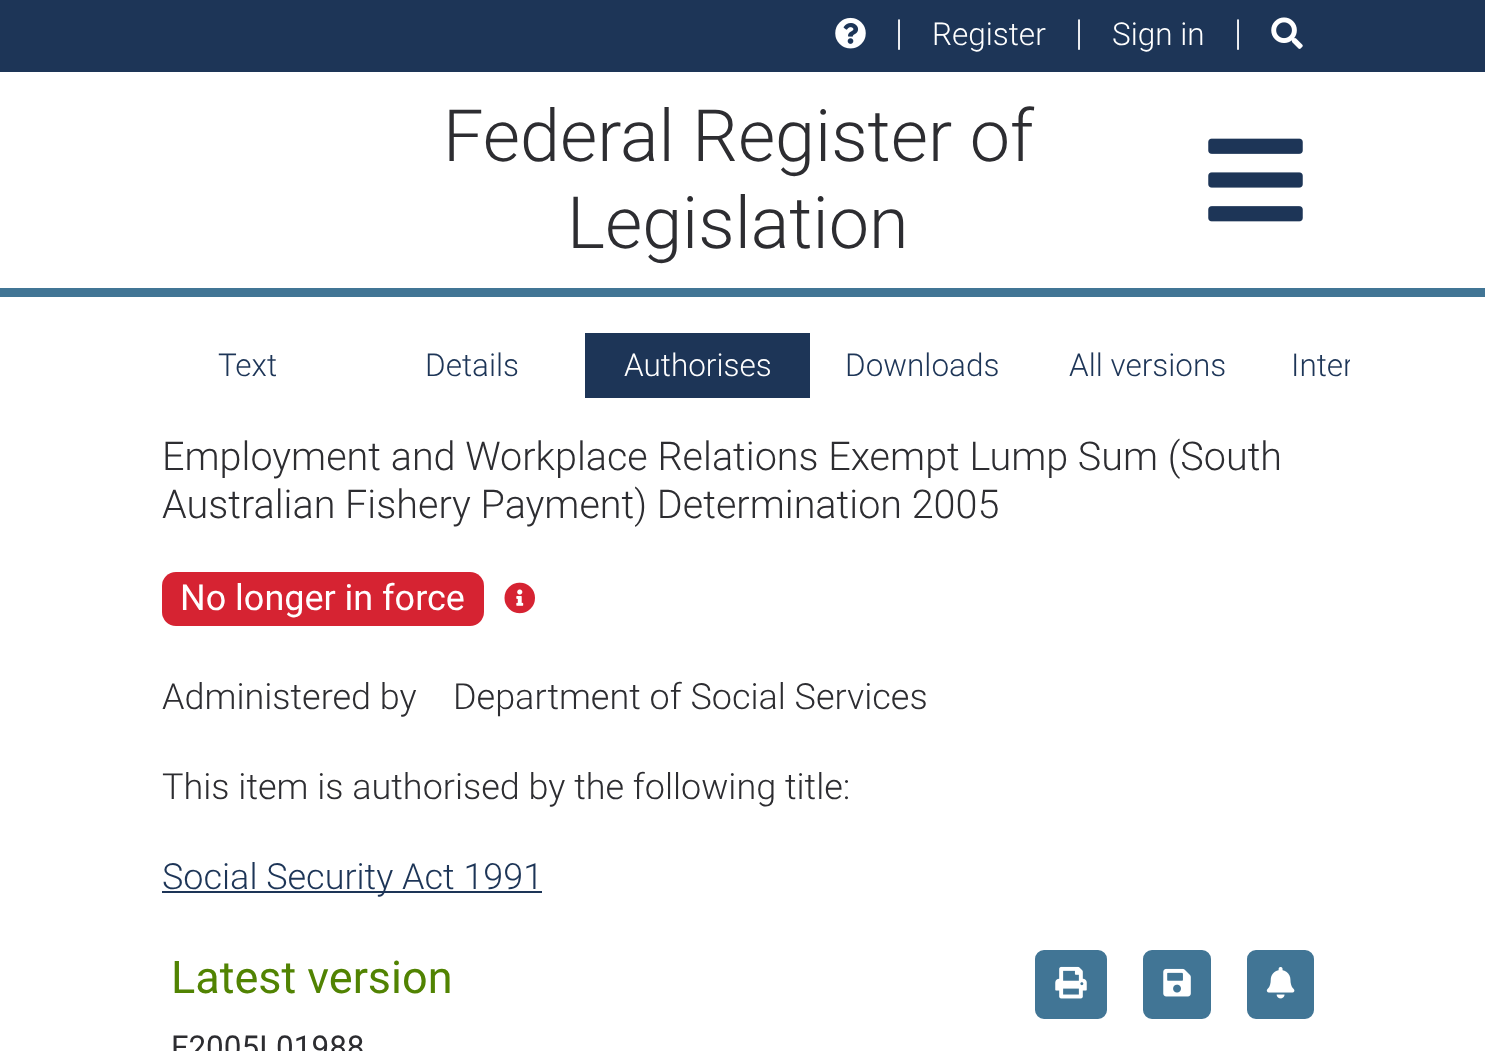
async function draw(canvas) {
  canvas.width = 1485
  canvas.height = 1051
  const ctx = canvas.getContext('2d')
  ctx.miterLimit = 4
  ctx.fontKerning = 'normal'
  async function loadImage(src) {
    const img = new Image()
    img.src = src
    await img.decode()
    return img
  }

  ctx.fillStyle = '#fff'
  ctx.fillRect(0, 0, 1485, 1051)
  ctx.fillStyle = '#417595'
  ctx.fillRect(0, 288, 1485, 9)
  ctx.fillStyle = '#1d3557'
  ctx.fillRect(0, 0, 1485, 72)
  ctx.drawImage(await loadImage('image0.png'), 835, 17, 31, 32)
  ctx.font = '300 36px Roboto'
  ctx.fillStyle = '#fff'
  ctx.fillText('|', 895, 45)
  ctx.font = '300 31.5px Roboto'
  ctx.fillText('Register', 932, 45)
  ctx.font = '300 36px Roboto'
  ctx.fillText('|', 1075, 45)
  ctx.font = '300 31.5px Roboto'
  ctx.fillText('Sign in', 1112, 45)
  ctx.font = '300 36px Roboto'
  ctx.fillText('|', 1234, 45)
  ctx.drawImage(await loadImage('image1.png'), 1271, 17, 32, 32)
  ctx.font = '300 72px Roboto'
  ctx.fillStyle = '#2d2d31'
  ctx.fillText('Federal Register of', 443, 161)
  ctx.fillText('Legislation', 567, 248)
  ctx.drawImage(await loadImage('image2.png'), 1208, 138, 95, 84)
  ctx.font = '300 31.5px Roboto'
  ctx.fillStyle = '#1d3557'
  ctx.fillText('Text', 218, 376)
  ctx.fillText('Details', 425, 376)
  ctx.fillRect(585, 333, 225, 65)
  ctx.fillStyle = '#fff'
  ctx.fillText('Authorises', 624, 376)
  ctx.fillStyle = '#1d3557'
  ctx.fillText('Downloads', 845, 376)
  ctx.fillText('All versions', 1069, 376)
  ctx.save()
  ctx.beginPath()
  ctx.rect(135, 333, 1215, 65)
  ctx.clip()
  ctx.fillText('Inter', 1291, 376)
  ctx.restore()
  ctx.font = '300 39.6px Roboto'
  ctx.fillStyle = '#2d2d31'
  ctx.fillText('Employment and Workplace Relations Exempt Lump Sum (South', 162, 470)
  ctx.fillText('Australian Fishery Payment) Determination 2005', 162, 518)
  ctx.fillStyle = '#d62332'
  ctx.beginPath()
  ctx.roundRect(162, 572, 322, 54, 14)
  ctx.fill()
  ctx.font = '36px Roboto'
  ctx.fillStyle = '#fff'
  ctx.fillText('No longer in force', 180, 610)
  ctx.drawImage(await loadImage('image3.png'), 504, 582, 31, 32)
  ctx.font = '300 36px Roboto'
  ctx.fillStyle = '#2d2d31'
  ctx.fillText('Administered by', 162, 709)
  ctx.fillText('Department of Social Services', 453, 709)
  ctx.fillText('This item is authorised by the following title:', 162, 799)
  ctx.fillStyle = '#1d3557'
  ctx.fillRect(162, 891, 380, 2)
  ctx.fillText('Social Security Act 1991', 162, 889)
  ctx.font = '45px Roboto'
  ctx.fillStyle = '#518302'
  ctx.fillText('Latest version', 171, 993)
  ctx.fillStyle = '#417595'
  ctx.beginPath()
  ctx.roundRect(1036, 951, 70, 67, 8)
  ctx.fill()
  ctx.strokeStyle = '#417595'
  ctx.lineWidth = 2
  ctx.stroke()
  ctx.drawImage(await loadImage('image4.png'), 1055, 966, 32, 33)
  ctx.beginPath()
  ctx.roundRect(1144, 951, 66, 67, 8)
  ctx.fill()
  ctx.stroke()
  ctx.drawImage(await loadImage('image5.png'), 1163, 968, 28, 29)
  ctx.beginPath()
  ctx.roundRect(1248, 951, 65, 67, 8)
  ctx.fill()
  ctx.stroke()
  ctx.drawImage(await loadImage('image6.png'), 1266, 967, 29, 32)
  ctx.font = '31.5px Roboto'
  ctx.fillStyle = '#2d2d31'
  ctx.fillText('F2005L01988', 171, 1058)
}

draw(document.querySelector('canvas'))
